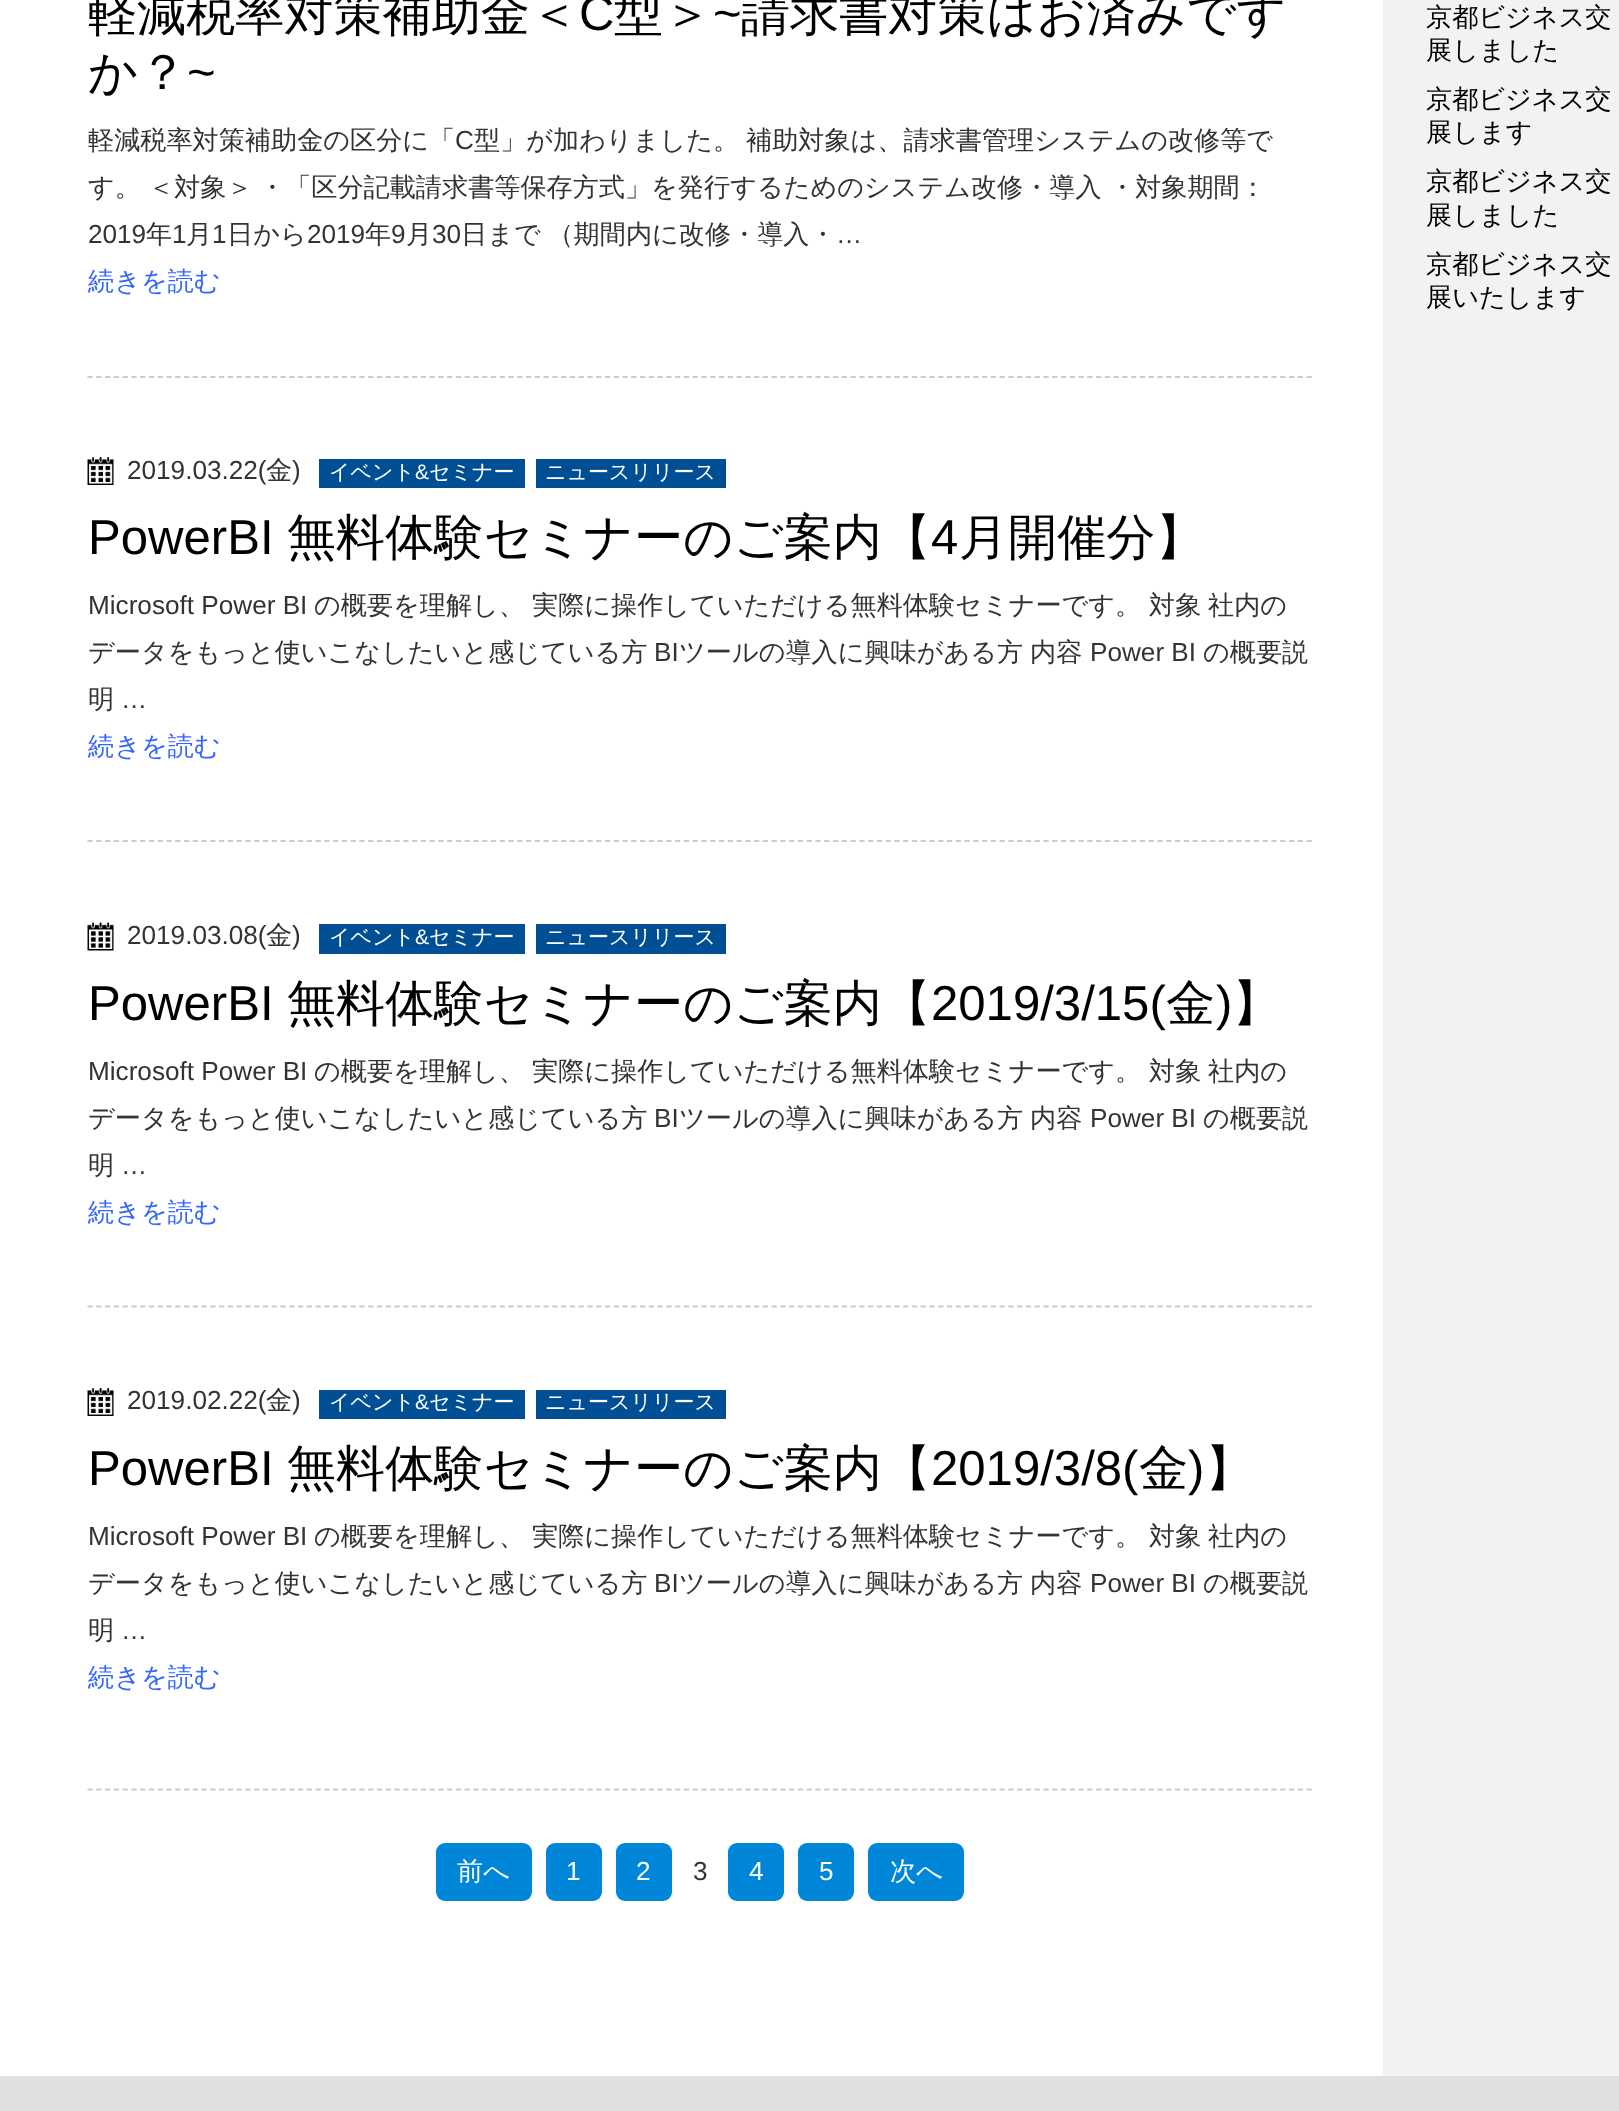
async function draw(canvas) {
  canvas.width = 1619
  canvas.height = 2111
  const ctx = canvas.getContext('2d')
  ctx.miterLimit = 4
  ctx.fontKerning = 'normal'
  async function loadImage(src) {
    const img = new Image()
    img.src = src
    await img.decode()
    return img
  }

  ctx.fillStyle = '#fff'
  ctx.fillRect(0, 0, 1619, 2111)
  ctx.font = '500 49.1px WenQuanYi Zen Hei'
  ctx.fillStyle = '#000'
  ctx.fillText('軽減税率対策補助金＜', 88, 30)
  ctx.font = '49.1px Liberation Sans'
  ctx.fillText('C', 579, 30)
  ctx.font = '500 49.1px WenQuanYi Zen Hei'
  ctx.fillText('型＞', 614, 30)
  ctx.font = '49.1px Liberation Sans'
  ctx.fillText('~', 713, 30)
  ctx.font = '500 49.1px WenQuanYi Zen Hei'
  ctx.fillText('請求書対策はお済みです', 741, 30)
  ctx.fillText('か？', 88, 89)
  ctx.font = '49.1px Liberation Sans'
  ctx.fillText('~', 187, 89)
  ctx.font = '500 26.15px WenQuanYi Zen Hei'
  ctx.fillStyle = '#333'
  ctx.fillText('軽減税率対策補助金の区分に「', 88, 149)
  ctx.font = '26.15px Liberation Sans'
  ctx.fillText('C', 455, 149)
  ctx.font = '500 26.15px WenQuanYi Zen Hei'
  ctx.fillText('型」が加わりました。', 474, 149)
  ctx.fillText('補助対象は、請求書管理システムの改修等で', 746, 149)
  ctx.fillText('す。', 88, 196)
  ctx.fillText('＜対象＞', 148, 196)
  ctx.fillText('・「区分記載請求書等保存方式」を発行するためのシステム改修・導入', 259, 196)
  ctx.fillText('・対象期間：', 1109, 196)
  ctx.font = '26.15px Liberation Sans'
  ctx.fillText('2019', 88, 243)
  ctx.font = '500 26.15px WenQuanYi Zen Hei'
  ctx.fillText('年', 146, 243)
  ctx.font = '26.15px Liberation Sans'
  ctx.fillText('1', 172, 243)
  ctx.font = '500 26.15px WenQuanYi Zen Hei'
  ctx.fillText('月', 186, 243)
  ctx.font = '26.15px Liberation Sans'
  ctx.fillText('1', 212, 243)
  ctx.font = '500 26.15px WenQuanYi Zen Hei'
  ctx.fillText('日から', 227, 243)
  ctx.font = '26.15px Liberation Sans'
  ctx.fillText('2019', 307, 243)
  ctx.font = '500 26.15px WenQuanYi Zen Hei'
  ctx.fillText('年', 365, 243)
  ctx.font = '26.15px Liberation Sans'
  ctx.fillText('9', 391, 243)
  ctx.font = '500 26.15px WenQuanYi Zen Hei'
  ctx.fillText('月', 406, 243)
  ctx.font = '26.15px Liberation Sans'
  ctx.fillText('30', 432, 243)
  ctx.wordSpacing = '-1px'
  ctx.font = '500 26.15px WenQuanYi Zen Hei'
  ctx.fillText('日まで （期間内に改修・導入・', 461, 243)
  ctx.wordSpacing = '0px'
  ctx.font = '26.15px Liberation Sans'
  ctx.fillText('…', 836, 243)
  ctx.font = '500 26.15px WenQuanYi Zen Hei'
  ctx.fillStyle = '#36f'
  ctx.fillText('続きを読む', 88, 290)
  ctx.beginPath()
  ctx.moveTo(87.5, 377)
  ctx.lineTo(1312.5, 377)
  ctx.strokeStyle = '#ccc'
  ctx.lineWidth = 1.8
  ctx.setLineDash([5.25, 3.52])
  ctx.stroke()
  ctx.drawImage(await loadImage('image0.png'), 87, 457, 27, 28)
  ctx.font = '26.15px Liberation Sans'
  ctx.fillStyle = '#333'
  ctx.fillText('2019.03.22(', 127, 479)
  ctx.font = '500 26.15px WenQuanYi Zen Hei'
  ctx.fillText('金', 266, 479)
  ctx.font = '26.15px Liberation Sans'
  ctx.fillText(')', 292, 479)
  ctx.fillStyle = '#004f94'
  ctx.fillRect(319, 459, 206, 29)
  ctx.font = '500 21px WenQuanYi Zen Hei'
  ctx.fillStyle = '#fff'
  ctx.fillText('イベント', 329, 479)
  ctx.font = '21px Liberation Sans'
  ctx.fillText('&', 415, 479)
  ctx.font = '500 21px WenQuanYi Zen Hei'
  ctx.fillText('セミナー', 429, 479)
  ctx.fillStyle = '#004f94'
  ctx.fillRect(536, 459, 190, 29)
  ctx.fillStyle = '#fff'
  ctx.fillText('ニュースリリース', 545, 479)
  ctx.font = '49.1px Liberation Sans'
  ctx.fillStyle = '#000'
  ctx.fillText('PowerBI', 88, 554)
  ctx.font = '500 49.1px WenQuanYi Zen Hei'
  ctx.fillText('無料体験セミナーのご案内【', 287, 554)
  ctx.font = '49.1px Liberation Sans'
  ctx.fillText('4', 931, 554)
  ctx.font = '500 49.1px WenQuanYi Zen Hei'
  ctx.fillText('月開催分】', 959, 554)
  ctx.font = '26.15px Liberation Sans'
  ctx.fillStyle = '#333'
  ctx.fillText('Microsoft Power BI', 88, 614)
  ctx.font = '500 26.15px WenQuanYi Zen Hei'
  ctx.fillText('の概要を理解し、', 314, 614)
  ctx.fillText('実際に操作していただける無料体験セミナーです。', 532, 614)
  ctx.fillText('対象', 1149, 614)
  ctx.fillText('社内の', 1208, 614)
  ctx.fillText('データをもっと使いこなしたいと感じている方', 88, 661)
  ctx.font = '26.15px Liberation Sans'
  ctx.fillText('BI', 654, 661)
  ctx.font = '500 26.15px WenQuanYi Zen Hei'
  ctx.fillText('ツールの導入に興味がある方', 679, 661)
  ctx.fillText('内容', 1030, 661)
  ctx.font = '26.15px Liberation Sans'
  ctx.fillText('Power BI', 1090, 661)
  ctx.font = '500 26.15px WenQuanYi Zen Hei'
  ctx.fillText('の概要説', 1203, 661)
  ctx.fillText('明', 88, 708)
  ctx.font = '26.15px Liberation Sans'
  ctx.fillText('…', 121, 708)
  ctx.font = '500 26.15px WenQuanYi Zen Hei'
  ctx.fillStyle = '#36f'
  ctx.fillText('続きを読む', 88, 755)
  ctx.beginPath()
  ctx.moveTo(87.5, 841)
  ctx.lineTo(1312.5, 841)
  ctx.stroke()
  ctx.drawImage(await loadImage('image1.png'), 87, 922, 27, 29)
  ctx.font = '26.15px Liberation Sans'
  ctx.fillStyle = '#333'
  ctx.fillText('2019.03.08(', 127, 944)
  ctx.font = '500 26.15px WenQuanYi Zen Hei'
  ctx.fillText('金', 266, 944)
  ctx.font = '26.15px Liberation Sans'
  ctx.fillText(')', 292, 944)
  ctx.fillStyle = '#004f94'
  ctx.fillRect(319, 924, 206, 30)
  ctx.font = '500 21px WenQuanYi Zen Hei'
  ctx.fillStyle = '#fff'
  ctx.fillText('イベント', 329, 944)
  ctx.font = '21px Liberation Sans'
  ctx.fillText('&', 415, 944)
  ctx.font = '500 21px WenQuanYi Zen Hei'
  ctx.fillText('セミナー', 429, 944)
  ctx.fillStyle = '#004f94'
  ctx.fillRect(536, 924, 190, 30)
  ctx.fillStyle = '#fff'
  ctx.fillText('ニュースリリース', 545, 944)
  ctx.font = '49.1px Liberation Sans'
  ctx.fillStyle = '#000'
  ctx.fillText('PowerBI', 88, 1020)
  ctx.font = '500 49.1px WenQuanYi Zen Hei'
  ctx.fillText('無料体験セミナーのご案内【', 287, 1020)
  ctx.font = '49.1px Liberation Sans'
  ctx.fillText('2019/3/15(', 931, 1020)
  ctx.font = '500 49.1px WenQuanYi Zen Hei'
  ctx.fillText('金', 1166, 1020)
  ctx.font = '49.1px Liberation Sans'
  ctx.fillText(')', 1216, 1020)
  ctx.font = '500 49.1px WenQuanYi Zen Hei'
  ctx.fillText('】', 1232, 1020)
  ctx.font = '26.15px Liberation Sans'
  ctx.fillStyle = '#333'
  ctx.fillText('Microsoft Power BI', 88, 1080)
  ctx.font = '500 26.15px WenQuanYi Zen Hei'
  ctx.fillText('の概要を理解し、', 314, 1080)
  ctx.fillText('実際に操作していただける無料体験セミナーです。', 532, 1080)
  ctx.fillText('対象', 1149, 1080)
  ctx.fillText('社内の', 1208, 1080)
  ctx.fillText('データをもっと使いこなしたいと感じている方', 88, 1127)
  ctx.font = '26.15px Liberation Sans'
  ctx.fillText('BI', 654, 1127)
  ctx.font = '500 26.15px WenQuanYi Zen Hei'
  ctx.fillText('ツールの導入に興味がある方', 679, 1127)
  ctx.fillText('内容', 1030, 1127)
  ctx.font = '26.15px Liberation Sans'
  ctx.fillText('Power BI', 1090, 1127)
  ctx.font = '500 26.15px WenQuanYi Zen Hei'
  ctx.fillText('の概要説', 1203, 1127)
  ctx.fillText('明', 88, 1174)
  ctx.font = '26.15px Liberation Sans'
  ctx.fillText('…', 121, 1174)
  ctx.font = '500 26.15px WenQuanYi Zen Hei'
  ctx.fillStyle = '#36f'
  ctx.fillText('続きを読む', 88, 1221)
  ctx.beginPath()
  ctx.moveTo(87.5, 1306.5)
  ctx.lineTo(1312.5, 1306.5)
  ctx.stroke()
  ctx.drawImage(await loadImage('image0.png'), 87, 1388, 27, 28)
  ctx.font = '26.15px Liberation Sans'
  ctx.fillStyle = '#333'
  ctx.fillText('2019.02.22(', 127, 1409)
  ctx.font = '500 26.15px WenQuanYi Zen Hei'
  ctx.fillText('金', 266, 1409)
  ctx.font = '26.15px Liberation Sans'
  ctx.fillText(')', 292, 1409)
  ctx.fillStyle = '#004f94'
  ctx.fillRect(319, 1390, 206, 29)
  ctx.font = '500 21px WenQuanYi Zen Hei'
  ctx.fillStyle = '#fff'
  ctx.fillText('イベント', 329, 1409)
  ctx.font = '21px Liberation Sans'
  ctx.fillText('&', 415, 1409)
  ctx.font = '500 21px WenQuanYi Zen Hei'
  ctx.fillText('セミナー', 429, 1409)
  ctx.fillStyle = '#004f94'
  ctx.fillRect(536, 1390, 190, 29)
  ctx.fillStyle = '#fff'
  ctx.fillText('ニュースリリース', 545, 1409)
  ctx.font = '49.1px Liberation Sans'
  ctx.fillStyle = '#000'
  ctx.fillText('PowerBI', 88, 1485)
  ctx.font = '500 49.1px WenQuanYi Zen Hei'
  ctx.fillText('無料体験セミナーのご案内【', 287, 1485)
  ctx.font = '49.1px Liberation Sans'
  ctx.fillText('2019/3/8(', 931, 1485)
  ctx.font = '500 49.1px WenQuanYi Zen Hei'
  ctx.fillText('金', 1139, 1485)
  ctx.font = '49.1px Liberation Sans'
  ctx.fillText(')', 1188, 1485)
  ctx.font = '500 49.1px WenQuanYi Zen Hei'
  ctx.fillText('】', 1205, 1485)
  ctx.font = '26.15px Liberation Sans'
  ctx.fillStyle = '#333'
  ctx.fillText('Microsoft Power BI', 88, 1545)
  ctx.font = '500 26.15px WenQuanYi Zen Hei'
  ctx.fillText('の概要を理解し、', 314, 1545)
  ctx.fillText('実際に操作していただける無料体験セミナーです。', 532, 1545)
  ctx.fillText('対象', 1149, 1545)
  ctx.fillText('社内の', 1208, 1545)
  ctx.fillText('データをもっと使いこなしたいと感じている方', 88, 1592)
  ctx.font = '26.15px Liberation Sans'
  ctx.fillText('BI', 654, 1592)
  ctx.font = '500 26.15px WenQuanYi Zen Hei'
  ctx.fillText('ツールの導入に興味がある方', 679, 1592)
  ctx.fillText('内容', 1030, 1592)
  ctx.font = '26.15px Liberation Sans'
  ctx.fillText('Power BI', 1090, 1592)
  ctx.font = '500 26.15px WenQuanYi Zen Hei'
  ctx.fillText('の概要説', 1203, 1592)
  ctx.fillText('明', 88, 1639)
  ctx.font = '26.15px Liberation Sans'
  ctx.fillText('…', 121, 1639)
  ctx.font = '500 26.15px WenQuanYi Zen Hei'
  ctx.fillStyle = '#36f'
  ctx.fillText('続きを読む', 88, 1686)
  ctx.beginPath()
  ctx.moveTo(87.5, 1789.5)
  ctx.lineTo(1312.5, 1789.5)
  ctx.stroke()
  ctx.fillStyle = '#0086d8'
  ctx.beginPath()
  ctx.roundRect(436, 1843, 96, 58, 9)
  ctx.fill()
  ctx.fillStyle = '#fff'
  ctx.fillText('前へ', 457, 1880)
  ctx.fillStyle = '#0086d8'
  ctx.beginPath()
  ctx.roundRect(546, 1843, 56, 58, 9)
  ctx.fill()
  ctx.font = '26.15px Liberation Sans'
  ctx.fillStyle = '#fff'
  ctx.fillText('1', 566, 1880)
  ctx.fillStyle = '#0086d8'
  ctx.beginPath()
  ctx.roundRect(616, 1843, 56, 58, 9)
  ctx.fill()
  ctx.fillStyle = '#fff'
  ctx.fillText('2', 636, 1880)
  ctx.fillStyle = '#333'
  ctx.fillText('3', 693, 1880)
  ctx.fillStyle = '#0086d8'
  ctx.beginPath()
  ctx.roundRect(728, 1843, 56, 58, 9)
  ctx.fill()
  ctx.fillStyle = '#fff'
  ctx.fillText('4', 749, 1880)
  ctx.fillStyle = '#0086d8'
  ctx.beginPath()
  ctx.roundRect(798, 1843, 56, 58, 9)
  ctx.fill()
  ctx.fillStyle = '#fff'
  ctx.fillText('5', 819, 1880)
  ctx.fillStyle = '#0086d8'
  ctx.beginPath()
  ctx.roundRect(868, 1843, 96, 58, 9)
  ctx.fill()
  ctx.font = '500 26.15px WenQuanYi Zen Hei'
  ctx.fillStyle = '#fff'
  ctx.fillText('次へ', 890, 1880)
  ctx.fillStyle = '#f2f2f2'
  ctx.fillRect(1383, 0, 236, 2076)
  ctx.fillStyle = '#000'
  ctx.fillText('京都ビジネス交', 1426, 26)
  ctx.fillText('展しました', 1426, 59)
  ctx.fillText('京都ビジネス交', 1426, 108)
  ctx.fillText('展します', 1426, 141)
  ctx.fillText('京都ビジネス交', 1426, 190)
  ctx.fillText('展しました', 1426, 224)
  ctx.fillText('京都ビジネス交', 1426, 273)
  ctx.fillText('展いたします', 1426, 306)
  ctx.fillStyle = '#e0e0e0'
  ctx.fillRect(0, 2076, 1619, 35)
}

draw(document.querySelector('canvas'))
